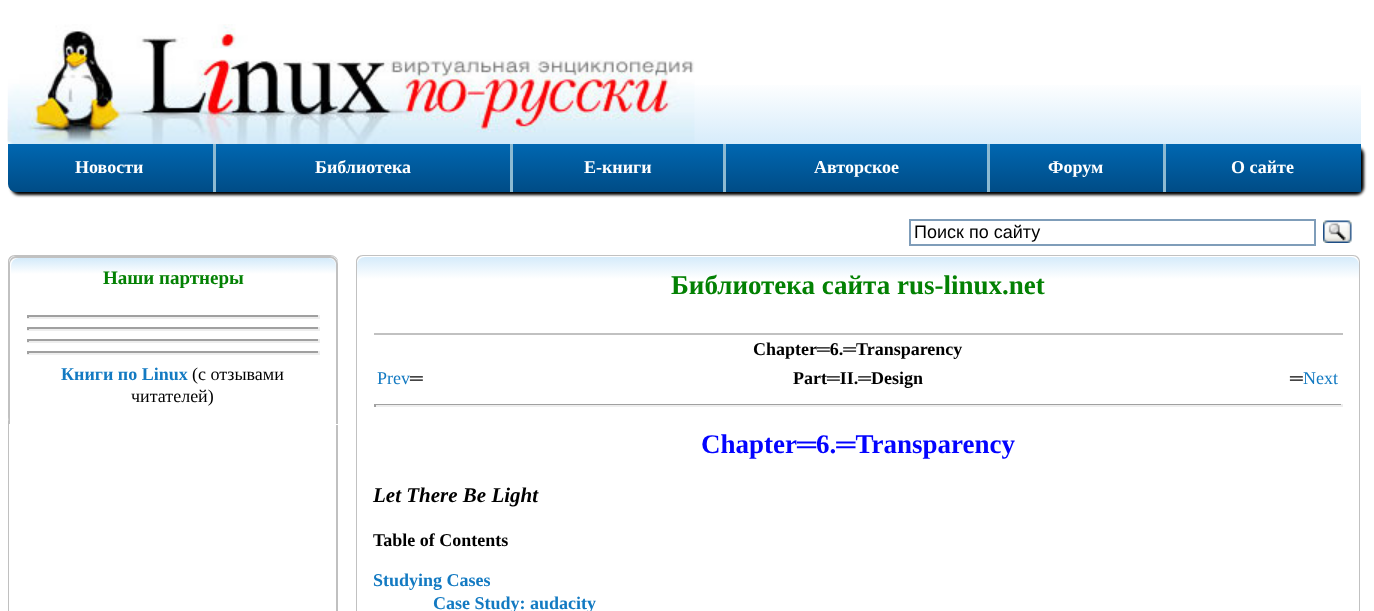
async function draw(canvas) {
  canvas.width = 1374
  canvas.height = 611
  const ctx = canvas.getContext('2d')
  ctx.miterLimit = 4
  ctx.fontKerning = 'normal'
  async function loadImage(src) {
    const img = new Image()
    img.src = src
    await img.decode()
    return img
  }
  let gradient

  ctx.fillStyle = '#fff'
  ctx.fillRect(0, 0, 1374, 611)
  ctx.fillStyle = '#000'
  ctx.filter = 'blur(1.5px)'
  ctx.beginPath()
  ctx.roundRect(11, 147, 1353, 48, 8)
  ctx.fill()
  ctx.filter = 'none'
  gradient = ctx.createLinearGradient(684, 150, 684, 12)
  gradient.addColorStop(0, '#d3eafa')
  gradient.addColorStop(0.5, '#fff')
  gradient.addColorStop(1, '#fff')
  ctx.fillStyle = gradient
  ctx.fillRect(8, 85, 1353, 59)
  ctx.drawImage(await loadImage('image0.png'), 7, 24, 688, 120)
  ctx.drawImage(await loadImage('image1.png'), 7, 119, 1, 23)
  gradient = ctx.createLinearGradient(110, 144, 110, 192)
  gradient.addColorStop(0, '#0067b1')
  gradient.addColorStop(1, '#004c86')
  ctx.fillStyle = gradient
  ctx.beginPath()
  ctx.roundRect(8, 144, 205, 48, [0, 0, 0, 8])
  ctx.fill()
  ctx.font = 'bold 18px Liberation Serif'
  ctx.fillStyle = '#fff'
  ctx.fillText('Новости', 75, 173)
  gradient = ctx.createLinearGradient(363, 144, 363, 192)
  gradient.addColorStop(0, '#0067b1')
  gradient.addColorStop(1, '#004c86')
  ctx.fillStyle = gradient
  ctx.fillRect(216, 144, 294, 48)
  ctx.fillStyle = '#8cbad2'
  ctx.fillRect(213, 144, 3, 48)
  ctx.fillStyle = '#fff'
  ctx.fillText('Библиотека', 315, 173)
  gradient = ctx.createLinearGradient(618, 144, 618, 192)
  gradient.addColorStop(0, '#0067b1')
  gradient.addColorStop(1, '#004c86')
  ctx.fillStyle = gradient
  ctx.fillRect(513, 144, 210, 48)
  ctx.fillStyle = '#8cbad2'
  ctx.fillRect(510, 144, 3, 48)
  ctx.fillStyle = '#fff'
  ctx.fillText('Е-книги', 584, 173)
  gradient = ctx.createLinearGradient(857, 144, 857, 192)
  gradient.addColorStop(0, '#0067b1')
  gradient.addColorStop(1, '#004c86')
  ctx.fillStyle = gradient
  ctx.fillRect(726, 144, 261, 48)
  ctx.fillStyle = '#8cbad2'
  ctx.fillRect(723, 144, 3, 48)
  ctx.fillStyle = '#fff'
  ctx.fillText('Авторское', 814, 173)
  gradient = ctx.createLinearGradient(1076, 144, 1076, 192)
  gradient.addColorStop(0, '#0067b1')
  gradient.addColorStop(1, '#004c86')
  ctx.fillStyle = gradient
  ctx.fillRect(990, 144, 173, 48)
  ctx.fillStyle = '#8cbad2'
  ctx.fillRect(987, 144, 3, 48)
  ctx.fillStyle = '#fff'
  ctx.fillText('Форум', 1048, 173)
  gradient = ctx.createLinearGradient(1263, 144, 1263, 192)
  gradient.addColorStop(0, '#0067b1')
  gradient.addColorStop(1, '#004c86')
  ctx.fillStyle = gradient
  ctx.fillRect(1166, 144, 195, 48)
  ctx.fillStyle = '#8cbad2'
  ctx.fillRect(1163, 144, 3, 48)
  ctx.fillStyle = '#fff'
  ctx.fillText('О сайте', 1231, 173)
  ctx.strokeStyle = '#7f9db9'
  ctx.lineWidth = 2
  ctx.strokeRect(910, 220, 405, 25)
  ctx.font = '18px Liberation Sans'
  ctx.fillStyle = '#000'
  ctx.fillText('Поиск по сайту', 914, 238)
  ctx.drawImage(await loadImage('image2.png'), 1323, 220, 29, 23)
  ctx.fillStyle = '#c0c0c0'
  ctx.beginPath()
  ctx.moveTo(15, 255)
  ctx.lineTo(330, 255)
  ctx.bezierCurveTo(334, 255, 338, 258, 338, 262)
  ctx.lineTo(338, 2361)
  ctx.bezierCurveTo(338, 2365, 334, 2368, 330, 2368)
  ctx.lineTo(15, 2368)
  ctx.bezierCurveTo(11, 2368, 8, 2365, 8, 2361)
  ctx.lineTo(8, 262)
  ctx.bezierCurveTo(8, 258, 11, 255, 15, 255)
  ctx.closePath()
  ctx.moveTo(15, 255)
  ctx.lineTo(330, 255)
  ctx.bezierCurveTo(333, 255, 336, 258, 336, 262)
  ctx.lineTo(336, 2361)
  ctx.bezierCurveTo(336, 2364, 333, 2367, 330, 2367)
  ctx.lineTo(15, 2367)
  ctx.bezierCurveTo(12, 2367, 9, 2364, 9, 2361)
  ctx.lineTo(9, 262)
  ctx.bezierCurveTo(9, 258, 12, 255, 15, 255)
  ctx.closePath()
  ctx.fill('evenodd')
  ctx.fillStyle = '#fffffffc'
  ctx.beginPath()
  ctx.roundRect(8, 255, 330, 170, 8)
  ctx.fill()
  ctx.fillStyle = '#c0c0c0fc'
  ctx.beginPath()
  ctx.moveTo(15, 255)
  ctx.lineTo(330, 255)
  ctx.bezierCurveTo(334, 255, 338, 258, 338, 262)
  ctx.lineTo(338, 417)
  ctx.bezierCurveTo(338, 421, 334, 424, 330, 424)
  ctx.lineTo(15, 424)
  ctx.bezierCurveTo(11, 424, 8, 421, 8, 417)
  ctx.lineTo(8, 262)
  ctx.bezierCurveTo(8, 258, 11, 255, 15, 255)
  ctx.closePath()
  ctx.moveTo(15, 256)
  ctx.lineTo(330, 256)
  ctx.bezierCurveTo(334, 256, 338, 259, 338, 262)
  ctx.lineTo(338, 417)
  ctx.bezierCurveTo(338, 421, 334, 424, 330, 424)
  ctx.lineTo(15, 424)
  ctx.bezierCurveTo(12, 424, 9, 421, 9, 417)
  ctx.lineTo(9, 262)
  ctx.bezierCurveTo(9, 259, 12, 256, 15, 256)
  ctx.closePath()
  ctx.fill('evenodd')
  ctx.fillStyle = '#fffffffc'
  ctx.beginPath()
  ctx.roundRect(9, 257, 329, 168, [8, 8, 0, 0])
  ctx.fill()
  ctx.fillStyle = '#c0c0c0fc'
  ctx.beginPath()
  ctx.moveTo(16, 256)
  ctx.lineTo(330, 256)
  ctx.bezierCurveTo(334, 256, 338, 260, 338, 264)
  ctx.lineTo(338, 424)
  ctx.lineTo(9, 424)
  ctx.lineTo(9, 264)
  ctx.bezierCurveTo(9, 260, 12, 256, 16, 256)
  ctx.closePath()
  ctx.moveTo(16, 258)
  ctx.lineTo(330, 258)
  ctx.bezierCurveTo(333, 258, 336, 261, 336, 264)
  ctx.lineTo(336, 424)
  ctx.lineTo(10, 424)
  ctx.lineTo(10, 264)
  ctx.bezierCurveTo(10, 261, 13, 258, 16, 258)
  ctx.closePath()
  ctx.fill('evenodd')
  gradient = ctx.createLinearGradient(173, 258, 173, 290)
  gradient.addColorStop(0, '#d3eafa')
  gradient.addColorStop(0.5, '#fff')
  gradient.addColorStop(1, '#fff')
  ctx.fillStyle = gradient
  ctx.beginPath()
  ctx.roundRect(11, 258, 325, 32, 8)
  ctx.fill()
  ctx.font = 'bold 19px Liberation Serif'
  ctx.fillStyle = '#038103'
  ctx.fillText('Наши партнеры', 103, 284)
  ctx.fillStyle = '#a0a0a0'
  ctx.fillRect(27, 315, 293, 2)
  ctx.fillStyle = '#eee'
  ctx.fillRect(318, 315, 2, 3)
  ctx.fillRect(27, 317, 293, 2)
  ctx.fillStyle = '#a0a0a0'
  ctx.fillRect(27, 315, 2, 3)
  ctx.fillRect(27, 327, 293, 2)
  ctx.fillStyle = '#eee'
  ctx.fillRect(318, 327, 2, 3)
  ctx.fillRect(27, 329, 293, 2)
  ctx.fillStyle = '#a0a0a0'
  ctx.fillRect(27, 327, 2, 3)
  ctx.fillRect(27, 339, 293, 2)
  ctx.fillStyle = '#eee'
  ctx.fillRect(318, 339, 2, 3)
  ctx.fillRect(27, 341, 293, 2)
  ctx.fillStyle = '#a0a0a0'
  ctx.fillRect(27, 339, 2, 3)
  ctx.fillRect(27, 351, 293, 2)
  ctx.fillStyle = '#eee'
  ctx.fillRect(318, 351, 2, 3)
  ctx.fillRect(27, 353, 293, 2)
  ctx.fillStyle = '#a0a0a0'
  ctx.fillRect(27, 351, 2, 3)
  ctx.font = 'bold 18px Liberation Serif'
  ctx.fillStyle = '#137ac2'
  ctx.fillText('Книги по Linux', 61, 380)
  ctx.font = '18px Liberation Serif'
  ctx.fillStyle = '#000'
  ctx.fillText('(с отзывами', 192, 380)
  ctx.fillText('читателей)', 131, 402)
  ctx.fillStyle = '#c0c0c0'
  ctx.beginPath()
  ctx.moveTo(363, 255)
  ctx.lineTo(1353, 255)
  ctx.bezierCurveTo(1357, 255, 1360, 258, 1360, 262)
  ctx.lineTo(1360, 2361)
  ctx.bezierCurveTo(1360, 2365, 1357, 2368, 1353, 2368)
  ctx.lineTo(363, 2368)
  ctx.bezierCurveTo(359, 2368, 356, 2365, 356, 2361)
  ctx.lineTo(356, 262)
  ctx.bezierCurveTo(356, 258, 359, 255, 363, 255)
  ctx.closePath()
  ctx.moveTo(363, 255)
  ctx.lineTo(1353, 255)
  ctx.bezierCurveTo(1356, 255, 1359, 258, 1359, 262)
  ctx.lineTo(1359, 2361)
  ctx.bezierCurveTo(1359, 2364, 1356, 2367, 1353, 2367)
  ctx.lineTo(363, 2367)
  ctx.bezierCurveTo(360, 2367, 357, 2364, 357, 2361)
  ctx.lineTo(357, 262)
  ctx.bezierCurveTo(357, 258, 360, 255, 363, 255)
  ctx.closePath()
  ctx.fill('evenodd')
  ctx.fillStyle = '#fffffffc'
  ctx.beginPath()
  ctx.moveTo(364, 255)
  ctx.lineTo(1353, 255)
  ctx.bezierCurveTo(1357.5, 255, 1361, 258.5, 1361, 263)
  ctx.lineTo(1361, 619)
  ctx.lineTo(356, 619)
  ctx.lineTo(356, 263)
  ctx.bezierCurveTo(356, 258.5, 359.5, 255, 364, 255)
  ctx.closePath()
  ctx.fill()
  ctx.fillStyle = '#c0c0c0fc'
  ctx.beginPath()
  ctx.moveTo(363, 255)
  ctx.lineTo(1353, 255)
  ctx.bezierCurveTo(1357, 255, 1360, 258, 1360, 262)
  ctx.lineTo(1360, 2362)
  ctx.lineTo(356, 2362)
  ctx.lineTo(356, 262)
  ctx.bezierCurveTo(356, 258, 359, 255, 363, 255)
  ctx.closePath()
  ctx.moveTo(363, 256)
  ctx.lineTo(1353, 256)
  ctx.bezierCurveTo(1356, 256, 1359, 259, 1359, 262)
  ctx.lineTo(1359, 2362)
  ctx.lineTo(357, 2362)
  ctx.lineTo(357, 262)
  ctx.bezierCurveTo(357, 259, 360, 256, 363, 256)
  ctx.closePath()
  ctx.fill('evenodd')
  gradient = ctx.createLinearGradient(858, 256, 858, 302)
  gradient.addColorStop(0, '#d3eafa')
  gradient.addColorStop(0.5, '#fff')
  gradient.addColorStop(1, '#fff')
  ctx.fillStyle = gradient
  ctx.beginPath()
  ctx.roundRect(357, 257, 1002, 45, 8)
  ctx.fill()
  ctx.font = 'bold 27px Liberation Serif'
  ctx.fillStyle = '#038103'
  ctx.fillText('Библиотека сайта rus-linux.net', 671, 294)
  ctx.fillStyle = '#c1c1c1'
  ctx.fillRect(374, 333, 969, 2)
  ctx.font = 'bold 18px Liberation Serif'
  ctx.fillStyle = '#000'
  ctx.fillText('Chapter═6.═Transparency', 753, 355)
  ctx.font = '18px Liberation Serif'
  ctx.fillStyle = '#137ac2'
  ctx.fillText('Prev', 377, 384)
  ctx.fillStyle = '#000'
  ctx.fillText('═', 410, 384)
  ctx.font = 'bold 18px Liberation Serif'
  ctx.fillText('Part═II.═Design', 793, 384)
  ctx.font = '18px Liberation Serif'
  ctx.fillText('═', 1290, 384)
  ctx.fillStyle = '#137ac2'
  ctx.fillText('Next', 1303, 384)
  ctx.fillStyle = '#a0a0a0'
  ctx.fillRect(374, 404, 969, 1)
  ctx.fillStyle = '#eee'
  ctx.fillRect(1341, 404, 2, 3)
  ctx.fillRect(374, 405, 969, 2)
  ctx.fillStyle = '#a0a0a0'
  ctx.fillRect(374, 404, 2, 3)
  ctx.font = 'bold 27px Liberation Serif'
  ctx.fillStyle = '#0303ff'
  ctx.fillText('Chapter═6.═Transparency', 701, 453)
  ctx.font = 'italic bold 21px Liberation Serif'
  ctx.fillStyle = '#000'
  ctx.fillText('Let There Be Light', 373, 502)
  ctx.font = 'bold 18px Liberation Serif'
  ctx.fillText('Table of Contents', 373, 546)
  ctx.fillStyle = '#137ac2'
  ctx.fillText('Studying Cases', 373, 586)
  ctx.fillText('Case Study: audacity', 433, 609)
}

draw(document.querySelector('canvas'))
